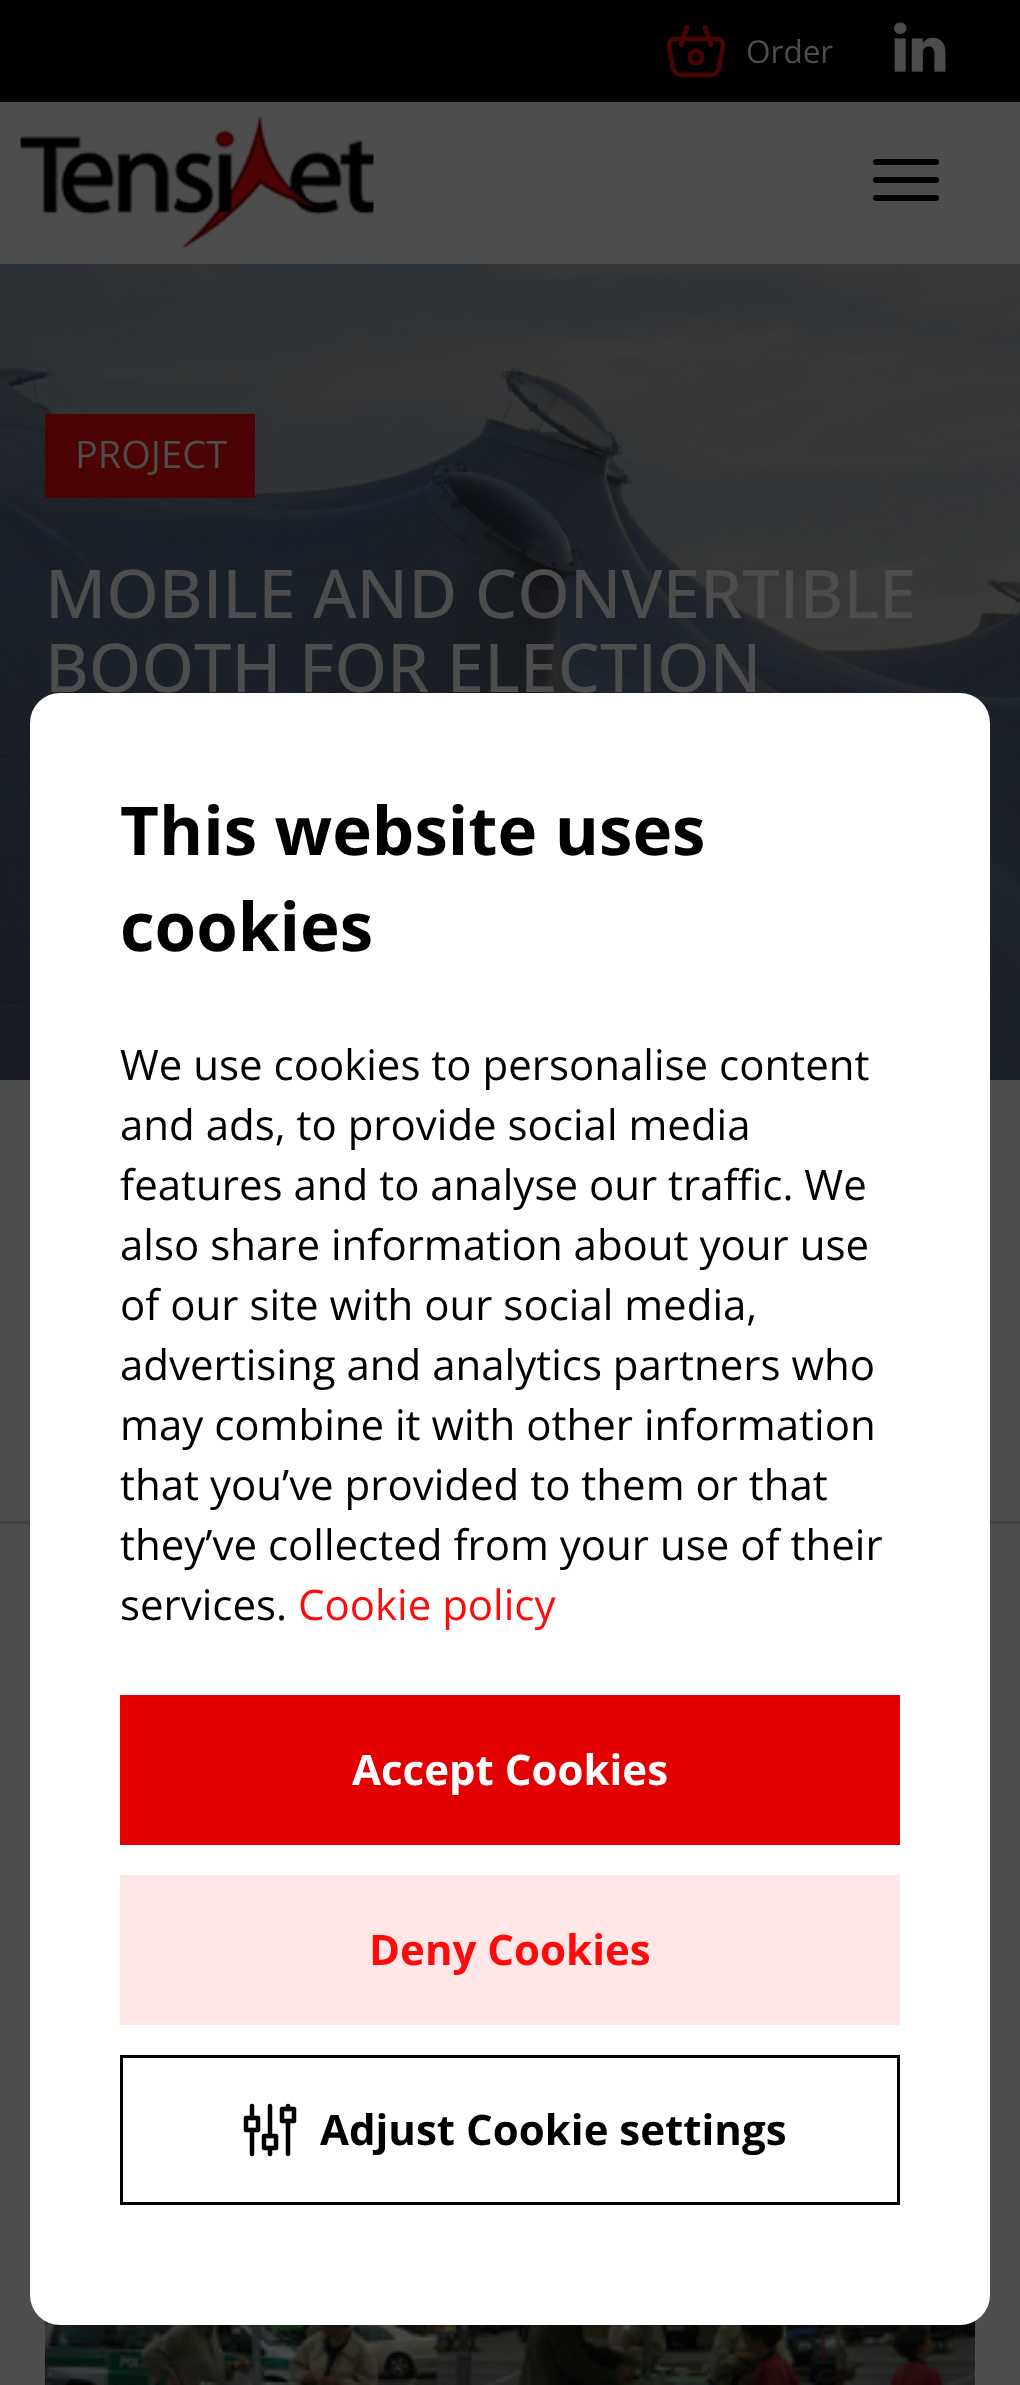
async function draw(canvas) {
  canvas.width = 1020
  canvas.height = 2385
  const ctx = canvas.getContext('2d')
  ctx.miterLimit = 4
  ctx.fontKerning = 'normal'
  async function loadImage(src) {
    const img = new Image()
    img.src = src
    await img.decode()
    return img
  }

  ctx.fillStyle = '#4d4d4d'
  ctx.fillRect(0, 0, 1020, 2385)
  ctx.fillStyle = '#000'
  ctx.fillRect(0, 0, 1020, 102)
  ctx.drawImage(await loadImage('image0.png'), 666, 24, 60, 54)
  ctx.font = '31.5px Open Sans'
  ctx.fillStyle = '#4d4d4d'
  ctx.fillText('Order', 746, 63)
  ctx.drawImage(await loadImage('image1.png'), 894, 22, 52, 50)
  ctx.drawImage(await loadImage('image2.png'), 20, 116, 354, 132)
  ctx.fillStyle = '#000'
  ctx.beginPath()
  ctx.roundRect(873, 159, 66, 6, 3)
  ctx.fill()
  ctx.beginPath()
  ctx.roundRect(873, 177, 66, 6, 3)
  ctx.fill()
  ctx.beginPath()
  ctx.roundRect(873, 195, 66, 6, 3)
  ctx.fill()
  ctx.drawImage(await loadImage('image3.png'), 0, 264, 1020, 816)
  ctx.fillStyle = '#4b0303'
  ctx.fillRect(45, 414, 210, 84)
  ctx.font = '38px Open Sans'
  ctx.fillStyle = '#4d4d4d'
  ctx.fillText('PROJECT', 75, 468)
  ctx.font = '500 67.25px Open Sans'
  ctx.fillText('MOBILE AND CONVERTIBLE', 45, 618)
  ctx.fillText('BOOTH FOR ELECTION', 45, 692)
  ctx.fillStyle = '#424242'
  ctx.fillRect(0, 1521, 1020, 3)
  ctx.drawImage(await loadImage('image4.png'), 45, 2321, 930, 64)
  ctx.fillStyle = '#fff'
  ctx.beginPath()
  ctx.roundRect(30, 693, 960, 1632, 30)
  ctx.fill()
  ctx.font = 'bold 67.25px Open Sans'
  ctx.fillStyle = '#000'
  ctx.fillText('This website uses', 120, 855)
  ctx.fillText('cookies', 120, 951)
  ctx.font = '42px Open Sans'
  ctx.fillText('We use cookies to personalise content', 120, 1080)
  ctx.fillText('and ads, to provide social media', 120, 1140)
  ctx.fillText('features and to analyse our traffic. We', 120, 1200)
  ctx.fillText('also share information about your use', 120, 1260)
  ctx.fillText('of our site with our social media,', 120, 1320)
  ctx.fillText('advertising and analytics partners who', 120, 1380)
  ctx.fillText('may combine it with other information', 120, 1440)
  ctx.fillText('that you’ve provided to them or that', 120, 1500)
  ctx.fillText('they’ve collected from your use of their', 120, 1560)
  ctx.fillText('services.', 120, 1620)
  ctx.fillStyle = '#fb0b0b'
  ctx.fillText('Cookie policy', 298, 1620)
  ctx.fillStyle = '#e20000'
  ctx.fillRect(120, 1695, 780, 150)
  ctx.font = 'bold 42px Open Sans'
  ctx.fillStyle = '#fff'
  ctx.fillText('Accept Cookies', 352, 1785)
  ctx.fillStyle = '#ffe7e7'
  ctx.fillRect(120, 1875, 780, 150)
  ctx.fillStyle = '#fb0b0b'
  ctx.fillText('Deny Cookies', 369, 1965)
  ctx.strokeStyle = '#000'
  ctx.lineWidth = 3
  ctx.strokeRect(121.5, 2056.5, 777, 147)
  ctx.drawImage(await loadImage('image5.png'), 243, 2103, 54, 54)
  ctx.fillStyle = '#000'
  ctx.fillText('Adjust Cookie settings', 320, 2145)
}

draw(document.querySelector('canvas'))
